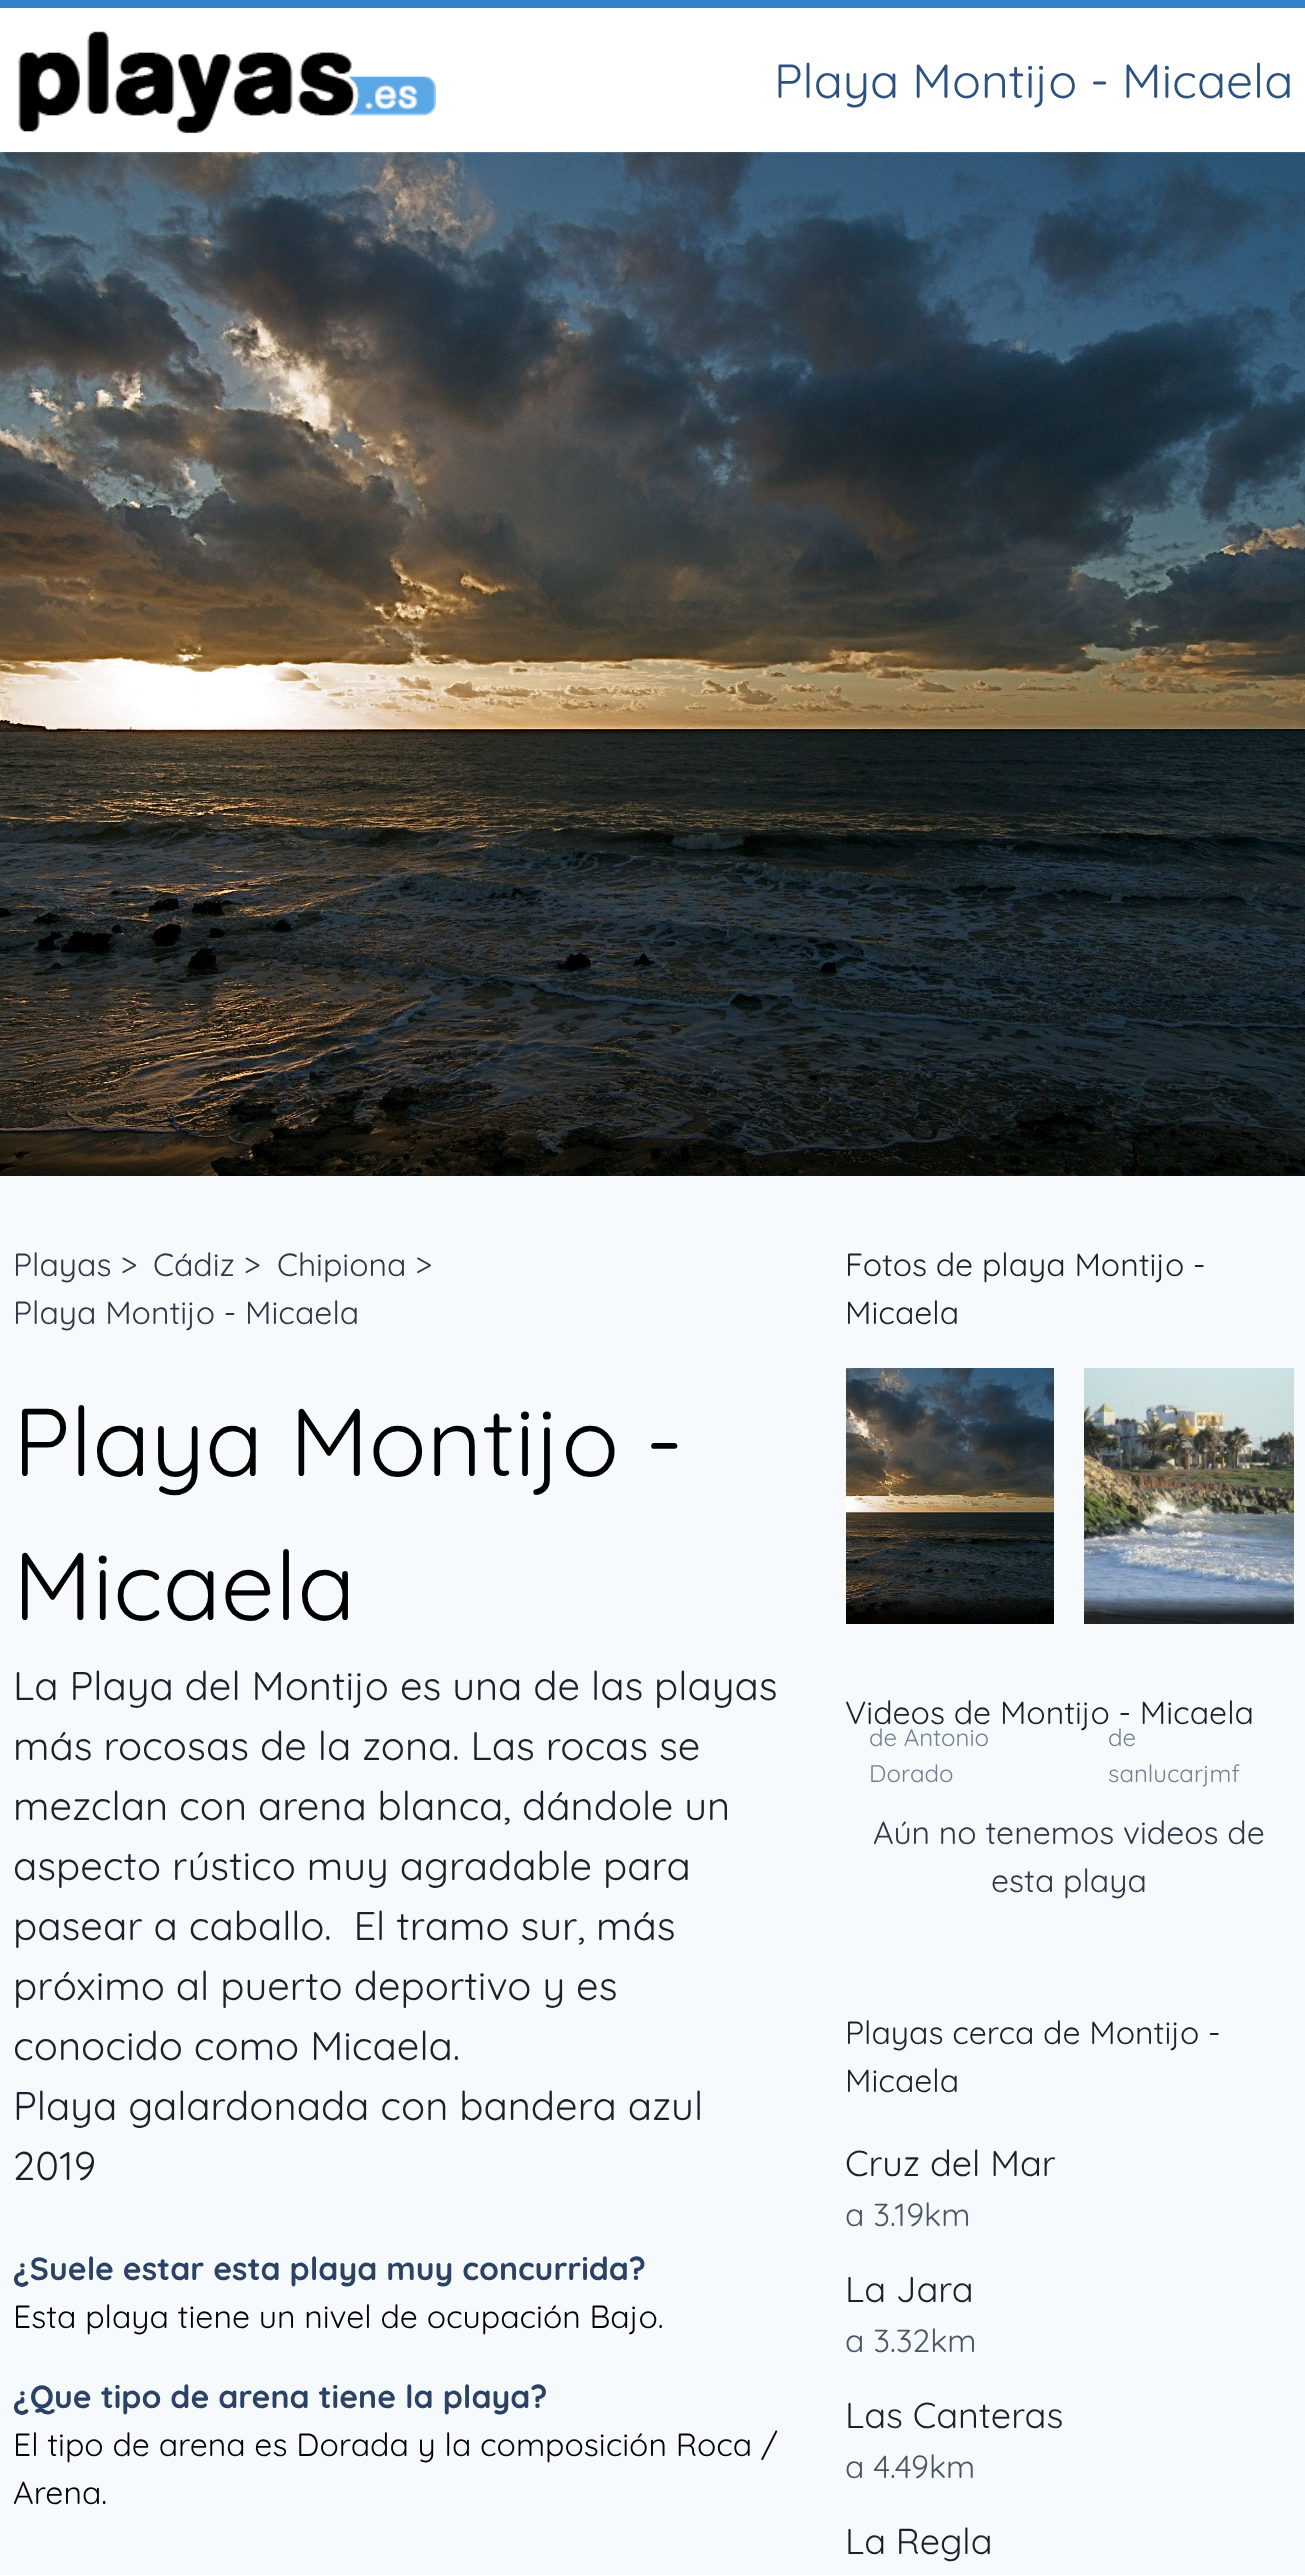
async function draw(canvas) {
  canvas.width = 1305
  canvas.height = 2575
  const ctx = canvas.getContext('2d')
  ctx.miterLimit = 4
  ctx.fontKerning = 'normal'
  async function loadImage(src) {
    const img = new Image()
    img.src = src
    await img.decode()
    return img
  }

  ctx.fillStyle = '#f7fafc'
  ctx.fillRect(0, 0, 1305, 2575)
  ctx.fillStyle = '#fff'
  ctx.fillRect(0, 8, 1305, 144)
  ctx.fillStyle = '#3182ce'
  ctx.fillRect(0, 0, 1305, 8)
  ctx.drawImage(await loadImage('image0.png'), 18, 31, 418, 103)
  ctx.font = '48px Quicksand'
  ctx.fillStyle = '#2c5282'
  ctx.fillText('Playa Montijo - Micaela', 774, 98)
  ctx.drawImage(await loadImage('image1.png'), 0, 152, 1305, 1024)
  ctx.font = '32px Quicksand'
  ctx.fillStyle = '#2d3748'
  ctx.fillText('Playas >', 13, 1276)
  ctx.fillText('Cádiz >', 153, 1276)
  ctx.fillText('Chipiona >', 277, 1276)
  ctx.fillText('Playa Montijo - Micaela', 13, 1324)
  ctx.font = '96px Quicksand'
  ctx.fillStyle = '#000'
  ctx.fillText('Playa Montijo -', 13, 1476)
  ctx.fillText('Micaela', 13, 1620)
  ctx.font = '40px Quicksand'
  ctx.fillStyle = '#1a202c'
  ctx.fillText('La Playa del Montijo es una de las playas', 13, 1700)
  ctx.fillText('más rocosas de la zona. Las rocas se', 13, 1760)
  ctx.fillText('mezclan con arena blanca, dándole un', 13, 1820)
  ctx.fillText('aspecto rústico muy agradable para', 13, 1880)
  ctx.fillText('pasear a caballo.  El tramo sur, más', 13, 1940)
  ctx.fillText('próximo al puerto deportivo y es', 13, 2000)
  ctx.fillText('conocido como Micaela.', 13, 2060)
  ctx.fillText('Playa galardonada con bandera azul', 13, 2120)
  ctx.fillText('2019', 13, 2180)
  ctx.font = 'bold 32px Quicksand'
  ctx.fillStyle = '#2a4365'
  ctx.fillText('¿Suele estar esta playa muy concurrida?', 13, 2280)
  ctx.font = '32px Quicksand'
  ctx.fillStyle = '#000'
  ctx.fillText('Esta playa tiene un nivel de ocupación Bajo.', 13, 2328)
  ctx.font = 'bold 32px Quicksand'
  ctx.fillStyle = '#2a4365'
  ctx.fillText('¿Que tipo de arena tiene la playa?', 13, 2408)
  ctx.font = '32px Quicksand'
  ctx.fillStyle = '#000'
  ctx.fillText('El tipo de arena es Dorada y la composición Roca /', 13, 2456)
  ctx.fillText('Arena.', 13, 2504)
  ctx.fillStyle = '#1a202c'
  ctx.fillText('Fotos de playa Montijo -', 845, 1276)
  ctx.fillText('Micaela', 845, 1324)
  ctx.fillText('Videos de Montijo - Micaela', 845, 1724)
  ctx.drawImage(await loadImage('image2.png'), 846, 1368, 208, 256)
  ctx.font = '24px Quicksand'
  ctx.fillStyle = '#718096'
  ctx.fillText('de Antonio', 869, 1746)
  ctx.fillText('Dorado', 869, 1782)
  ctx.drawImage(await loadImage('image3.png'), 1084, 1368, 210, 256)
  ctx.fillText('de', 1108, 1746)
  ctx.fillText('sanlucarjmf', 1108, 1782)
  ctx.font = '32px Quicksand'
  ctx.fillStyle = '#2d3748'
  ctx.fillText('Aún no tenemos videos de', 873, 1844)
  ctx.fillText('esta playa', 991, 1892)
  ctx.fillStyle = '#1a202c'
  ctx.fillText('Playas cerca de Montijo -', 845, 2044)
  ctx.fillText('Micaela', 845, 2092)
  ctx.font = '36px Quicksand'
  ctx.fillText('Cruz del Mar', 845, 2176)
  ctx.font = '32px Quicksand'
  ctx.fillStyle = '#4a5568'
  ctx.fillText('a 3.19km', 845, 2226)
  ctx.font = '36px Quicksand'
  ctx.fillStyle = '#1a202c'
  ctx.fillText('La Jara', 845, 2302)
  ctx.font = '32px Quicksand'
  ctx.fillStyle = '#4a5568'
  ctx.fillText('a 3.32km', 845, 2352)
  ctx.font = '36px Quicksand'
  ctx.fillStyle = '#1a202c'
  ctx.fillText('Las Canteras', 845, 2428)
  ctx.font = '32px Quicksand'
  ctx.fillStyle = '#4a5568'
  ctx.fillText('a 4.49km', 845, 2478)
  ctx.font = '36px Quicksand'
  ctx.fillStyle = '#1a202c'
  ctx.fillText('La Regla', 845, 2554)
}

draw(document.querySelector('canvas'))
